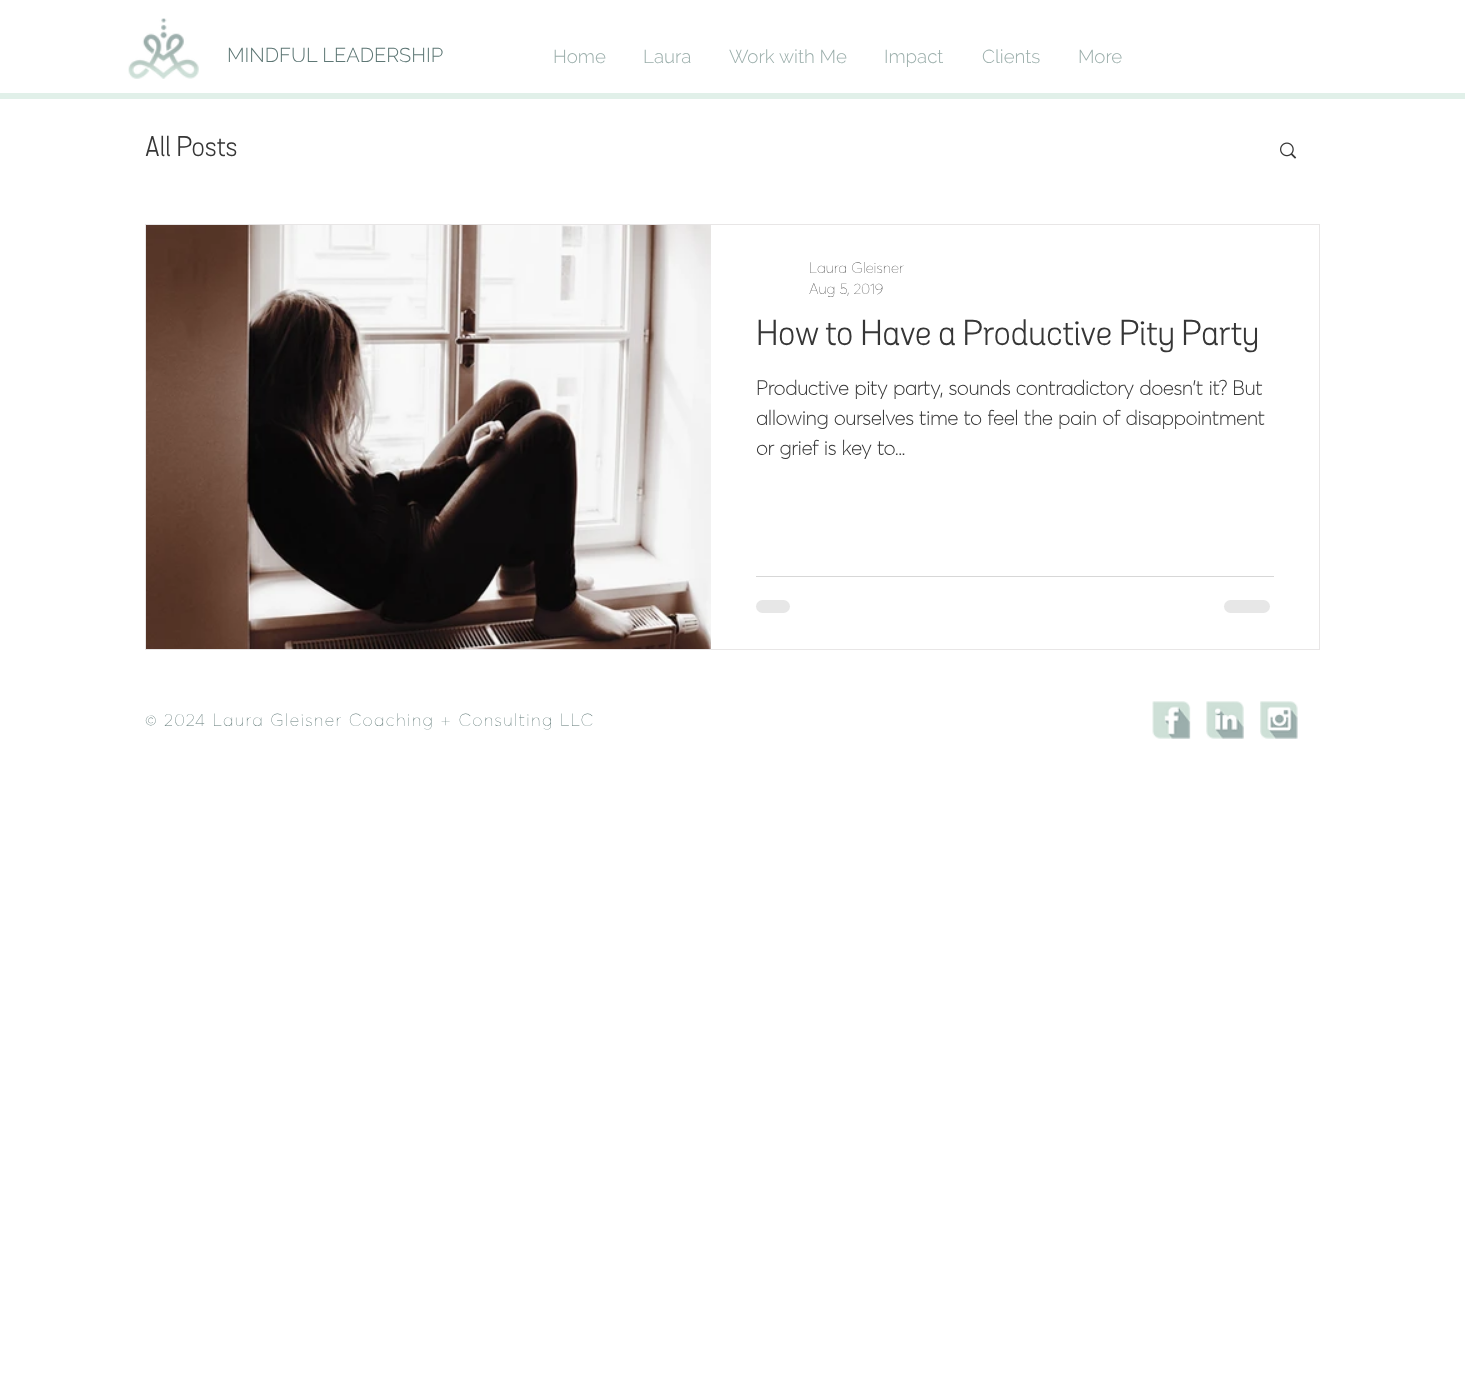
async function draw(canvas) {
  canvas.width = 1465
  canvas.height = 1385
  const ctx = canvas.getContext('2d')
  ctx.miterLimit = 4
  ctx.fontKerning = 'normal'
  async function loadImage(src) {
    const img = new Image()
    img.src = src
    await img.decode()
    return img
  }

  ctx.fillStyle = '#fff'
  ctx.fillRect(0, 0, 1465, 1385)
  ctx.drawImage(await loadImage('image0.png'), 128, 18, 71, 61)
  ctx.fillStyle = '#e1f0e9'
  ctx.fillRect(0, 93, 1465, 6)
  ctx.font = '300 20px Raleway'
  ctx.fillStyle = '#5e7775'
  ctx.fillText('MINDFUL LEADERSHIP', 227, 62)
  ctx.font = '300 18.75px Raleway'
  ctx.fillStyle = '#9baeab'
  ctx.fillText('Home', 553, 63)
  ctx.fillText('Laura', 643, 63)
  ctx.fillText('Work with Me', 729, 63)
  ctx.fillText('Impact', 884, 63)
  ctx.fillText('Clients', 982, 63)
  ctx.fillText('More', 1078, 63)
  ctx.font = '27.5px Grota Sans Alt'
  ctx.fillStyle = '#363636'
  ctx.fillText('All Posts', 145, 156)
  ctx.drawImage(await loadImage('image1.png'), 1280, 142, 17, 17)
  ctx.strokeStyle = '#e8e6e6'
  ctx.strokeRect(145.5, 224.5, 1174, 425)
  ctx.drawImage(await loadImage('image2.png'), 146, 225, 565, 424)
  ctx.font = '100 15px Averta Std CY'
  ctx.fillText('Laura Gleisner', 809, 273)
  ctx.fillText('Aug 5, 2019', 809, 294)
  ctx.font = '35px Grota Sans Alt'
  ctx.fillText('How to Have a Productive Pity Party', 756, 345)
  ctx.font = 'bold 20px Averta Std CY'
  ctx.fillText('Productive pity party, sounds contradictory doesn\'t it? But', 756, 395)
  ctx.fillText('allowing ourselves time to feel the pain of disappointment', 756, 425)
  ctx.fillText('or grief is key to...', 756, 455)
  ctx.fillStyle = '#d7d7d7'
  ctx.fillRect(756, 576, 518, 1)
  ctx.fillStyle = '#e7e7e7'
  ctx.beginPath()
  ctx.roundRect(756, 600, 34, 13, 6.5)
  ctx.fill()
  ctx.beginPath()
  ctx.roundRect(1224, 600, 46, 13, 6.5)
  ctx.fill()
  ctx.letterSpacing = '1.4px'
  ctx.font = '100 17.5px Averta Std CY'
  ctx.fillStyle = '#5e7775'
  ctx.fillText('© 2024 Laura Gleisner Coaching + Consulting LLC', 145, 726)
  ctx.drawImage(await loadImage('image3.png'), 1152, 701, 39, 38)
  ctx.drawImage(await loadImage('image4.png'), 1206, 701, 38, 38)
  ctx.drawImage(await loadImage('image5.png'), 1260, 701, 38, 38)
}

draw(document.querySelector('canvas'))
